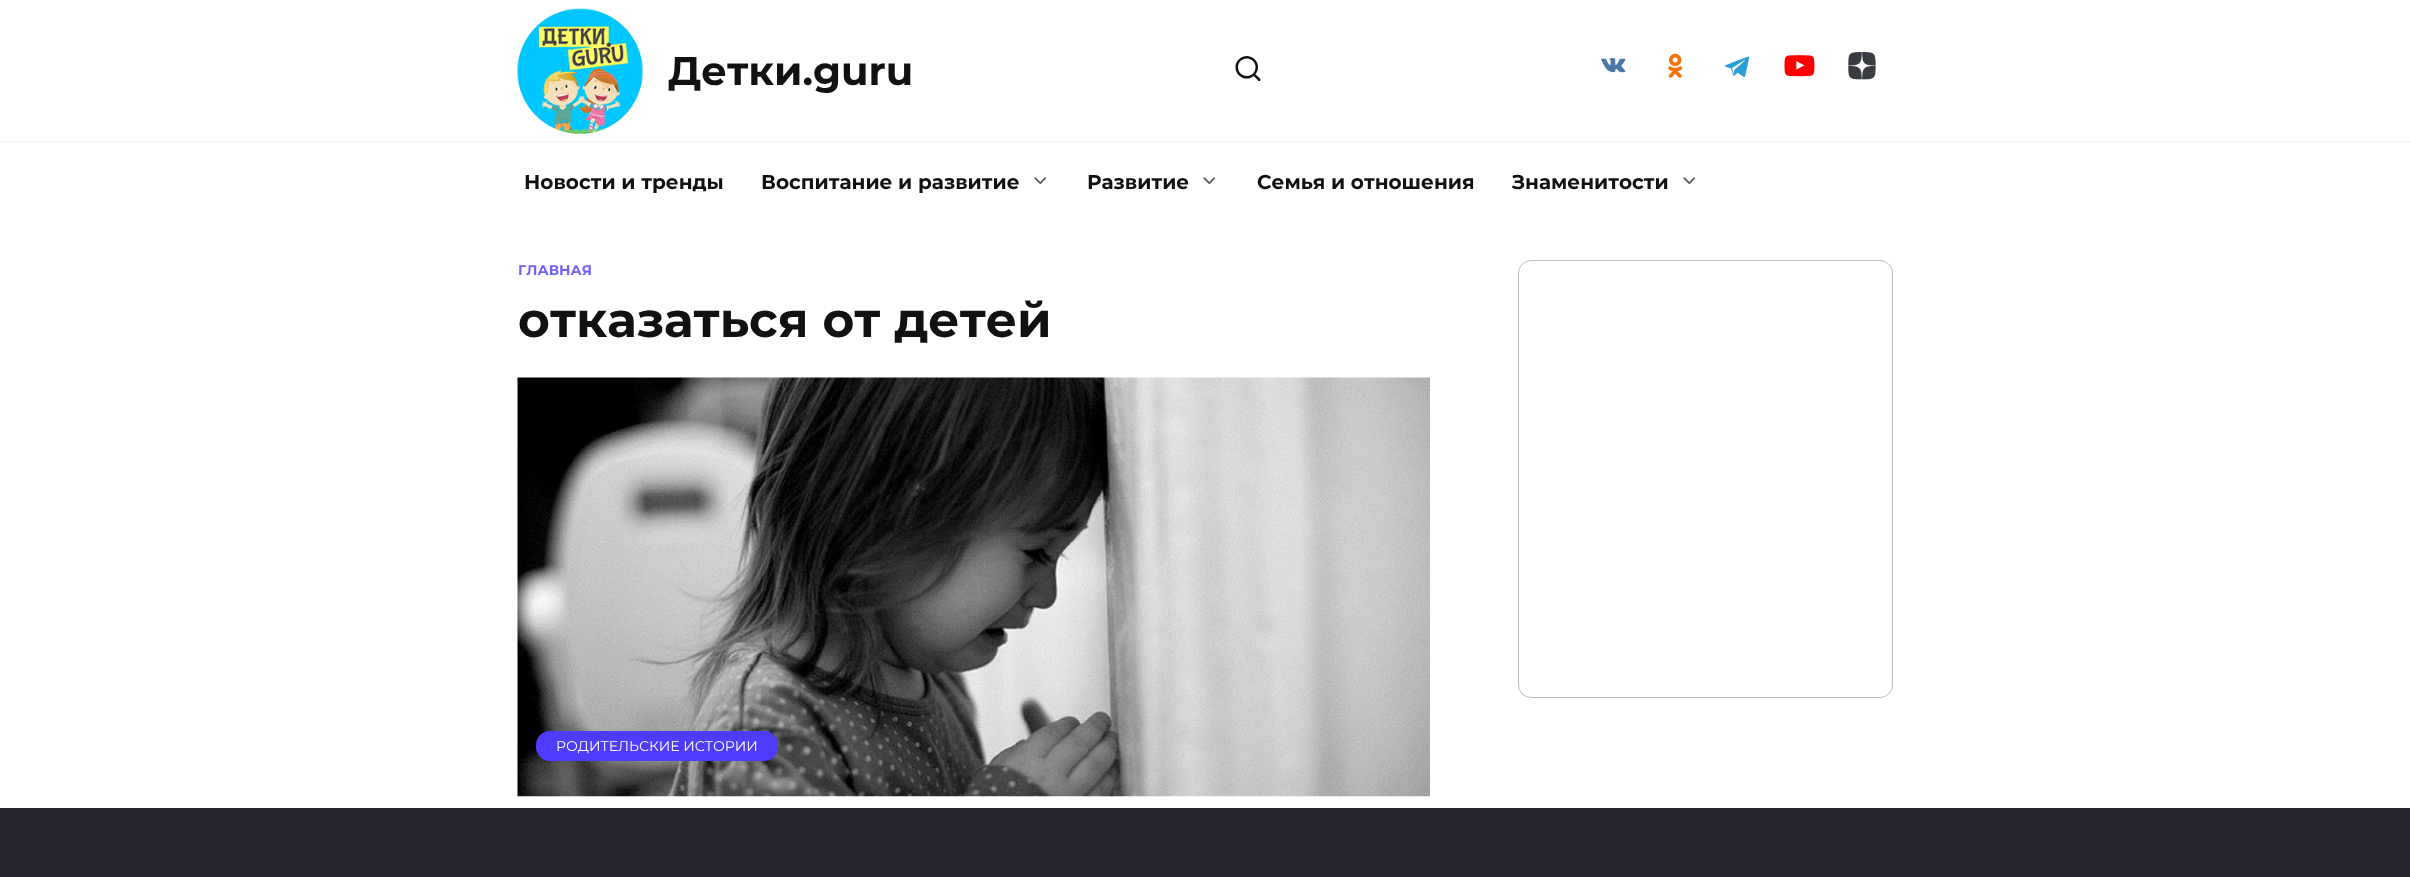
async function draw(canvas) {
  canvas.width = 2410
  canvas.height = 877
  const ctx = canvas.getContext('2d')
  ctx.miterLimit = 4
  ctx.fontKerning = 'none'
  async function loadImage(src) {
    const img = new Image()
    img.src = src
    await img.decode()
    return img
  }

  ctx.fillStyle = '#fff'
  ctx.fillRect(0, 0, 2410, 877)
  ctx.fillStyle = '#f2f5f9'
  ctx.fillRect(0, 141, 2410, 1)
  ctx.drawImage(await loadImage('image0.png'), 517, 8, 126, 126)
  ctx.font = 'bold 40px Montserrat'
  ctx.fillStyle = '#111'
  ctx.fillText('Детки.guru', 668, 85)
  ctx.font = '30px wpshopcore'
  ctx.fillText('🔍', 1233, 81)
  ctx.drawImage(await loadImage('image1.png'), 1601, 58, 25, 15)
  ctx.drawImage(await loadImage('image2.png'), 1668, 53, 15, 25)
  ctx.drawImage(await loadImage('image3.png'), 1724, 56, 26, 21)
  ctx.drawImage(await loadImage('image4.png'), 1784, 55, 31, 22)
  ctx.drawImage(await loadImage('image5.png'), 1848, 52, 28, 28)
  ctx.font = 'bold 20px Montserrat'
  ctx.fillText('Новости и тренды', 524, 189)
  ctx.fillText('Воспитание и развитие', 761, 189)
  ctx.font = '20px wpshopcore'
  ctx.fillStyle = '#585858'
  ctx.fillText('﹀', 1030, 189)
  ctx.font = 'bold 20px Montserrat'
  ctx.fillStyle = '#111'
  ctx.fillText('Развитие', 1087, 189)
  ctx.font = '20px wpshopcore'
  ctx.fillStyle = '#585858'
  ctx.fillText('﹀', 1199, 189)
  ctx.font = 'bold 20px Montserrat'
  ctx.fillStyle = '#111'
  ctx.fillText('Семья и отношения', 1257, 189)
  ctx.fillText('Знаменитости', 1512, 189)
  ctx.font = '20px wpshopcore'
  ctx.fillStyle = '#585858'
  ctx.fillText('﹀', 1679, 189)
  ctx.font = 'bold 14px Montserrat'
  ctx.fillStyle = '#7162fe'
  ctx.fillText('ГЛАВНАЯ', 518, 275)
  ctx.font = 'bold 48.75px Montserrat'
  ctx.fillStyle = '#111'
  ctx.fillText('отказаться от детей', 518, 337)
  ctx.drawImage(await loadImage('image6.png'), 517, 377, 913, 420)
  ctx.fillStyle = '#4d3bfe'
  ctx.beginPath()
  ctx.roundRect(536, 731, 242, 30, 14)
  ctx.fill()
  ctx.font = '14px Montserrat'
  ctx.fillStyle = '#fff'
  ctx.fillText('РОДИТЕЛЬСКИЕ ИСТОРИИ', 556, 751)
  ctx.beginPath()
  ctx.roundRect(1518.5, 260.5, 374, 437, 12.5)
  ctx.strokeStyle = '#b5c0c8'
  ctx.stroke()
  ctx.fillStyle = '#26252d'
  ctx.fillRect(0, 808, 2410, 69)
}

draw(document.querySelector('canvas'))
